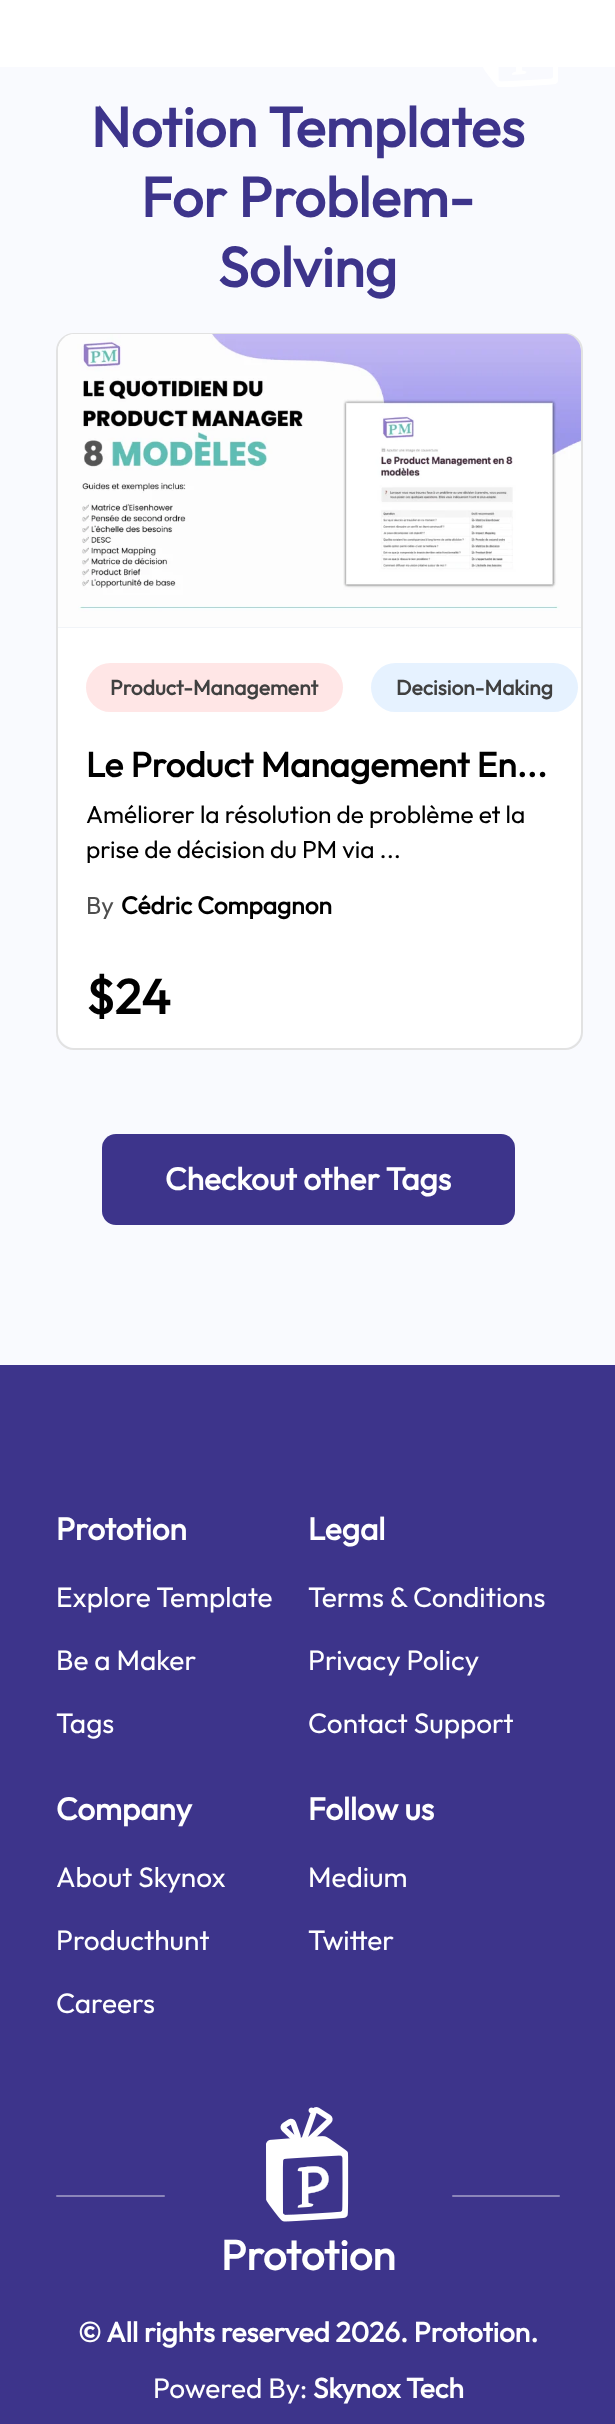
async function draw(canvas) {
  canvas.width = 615
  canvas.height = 2424
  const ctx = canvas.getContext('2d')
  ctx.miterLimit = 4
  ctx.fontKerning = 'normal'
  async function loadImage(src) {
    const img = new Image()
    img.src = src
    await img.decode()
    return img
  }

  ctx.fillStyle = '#fff'
  ctx.fillRect(0, 0, 615, 2424)
  ctx.fillStyle = '#f9fafe'
  ctx.fillRect(0, 67, 615, 1298)
  ctx.drawImage(await loadImage('image0.png'), 483, 67, 75, 20)
  ctx.font = 'bold 56px Outfit'
  ctx.fillStyle = '#3d348b'
  ctx.fillText('Notion Templates', 91, 147)
  ctx.fillText('For Problem-', 141, 217)
  ctx.fillText('Solving', 218, 287)
  ctx.beginPath()
  ctx.roundRect(57, 334, 525, 715, 17)
  ctx.strokeStyle = '#e2e2e2'
  ctx.lineWidth = 2
  ctx.stroke()
  ctx.save()
  ctx.beginPath()
  ctx.roundRect(58, 334, 523, 714, 16)
  ctx.clip()
  ctx.fillStyle = '#e2e8f0'
  ctx.beginPath()
  ctx.roundRect(58, 334, 523, 294, [18, 18, 0, 0])
  ctx.fill()
  ctx.restore()
  ctx.drawImage(await loadImage('image1.png'), 58, 334, 523, 294)
  ctx.save()
  ctx.beginPath()
  ctx.roundRect(58, 334, 523, 714, 16)
  ctx.clip()
  ctx.fillStyle = '#fff'
  ctx.beginPath()
  ctx.roundRect(58, 628, 523, 420, [0, 0, 18, 18])
  ctx.fill()
  ctx.restore()
  ctx.fillStyle = '#ffe6e6'
  ctx.beginPath()
  ctx.roundRect(86, 663, 257, 49, 24.5)
  ctx.fill()
  ctx.font = 'bold 21px Outfit'
  ctx.fillStyle = '#404040'
  ctx.fillText('Product-Management', 110, 695)
  ctx.fillStyle = '#e6f2ff'
  ctx.beginPath()
  ctx.roundRect(371, 663, 207, 49, 24.5)
  ctx.fill()
  ctx.fillStyle = '#404040'
  ctx.fillText('Decision-Making', 396, 695)
  ctx.font = 'bold 35px Outfit'
  ctx.fillStyle = '#000'
  ctx.fillText('Le Product Management En...', 86, 777)
  ctx.font = '100 24.5px Outfit'
  ctx.fillText('Améliorer la résolution de problème et la', 86, 823)
  ctx.fillText('prise de décision du PM via ...', 86, 858)
  ctx.fillStyle = '#4f4f4f'
  ctx.fillText('By', 86, 914)
  ctx.font = 'bold 24.5px Outfit'
  ctx.fillStyle = '#000'
  ctx.fillText('Cédric Compagnon', 121, 914)
  ctx.font = 'bold 49px Outfit'
  ctx.fillText('$24', 86, 1014)
  ctx.fillStyle = '#3d348b'
  ctx.beginPath()
  ctx.roundRect(102, 1134, 413, 91, 14)
  ctx.fill()
  ctx.font = 'bold 31.5px Outfit'
  ctx.fillStyle = '#fff'
  ctx.fillText('Checkout other Tags', 165, 1190)
  ctx.fillStyle = '#3d348b'
  ctx.fillRect(0, 1365, 615, 1059)
  ctx.fillStyle = '#fff'
  ctx.fillText('Prototion', 56, 1540)
  ctx.font = '100 28px Outfit'
  ctx.fillText('Explore Template', 56, 1607)
  ctx.fillText('Be a Maker', 56, 1670)
  ctx.fillText('Tags', 56, 1733)
  ctx.font = 'bold 31.5px Outfit'
  ctx.fillText('Legal', 308, 1540)
  ctx.font = '100 28px Outfit'
  ctx.fillText('Terms & Conditions', 308, 1607)
  ctx.fillText('Privacy Policy', 308, 1670)
  ctx.fillText('Contact Support', 308, 1733)
  ctx.font = 'bold 31.5px Outfit'
  ctx.fillText('Company', 56, 1820)
  ctx.font = '100 28px Outfit'
  ctx.fillText('About Skynox', 56, 1887)
  ctx.fillText('Producthunt', 56, 1950)
  ctx.fillText('Careers', 56, 2013)
  ctx.font = 'bold 31.5px Outfit'
  ctx.fillText('Follow us', 308, 1820)
  ctx.font = '100 28px Outfit'
  ctx.fillText('Medium', 308, 1887)
  ctx.fillText('Twitter', 308, 1950)
  ctx.fillStyle = '#8b85b9'
  ctx.beginPath()
  ctx.roundRect(56, 2195, 109, 2, 1)
  ctx.fill()
  ctx.beginPath()
  ctx.roundRect(452, 2195, 108, 2, 1)
  ctx.fill()
  ctx.drawImage(await loadImage('image2.png'), 266, 2107, 83, 115)
  ctx.font = 'bold 42px Outfit'
  ctx.fillStyle = '#fff'
  ctx.fillText('Prototion', 221, 2270)
  ctx.font = 'bold 28px Outfit'
  ctx.fillText('© All rights reserved 2026. Prototion.', 78, 2342)
  ctx.font = '100 28px Outfit'
  ctx.fillText('Powered By:', 153, 2398)
  ctx.font = 'bold 28px Outfit'
  ctx.fillText('Skynox Tech', 313, 2398)
}

draw(document.querySelector('canvas'))
